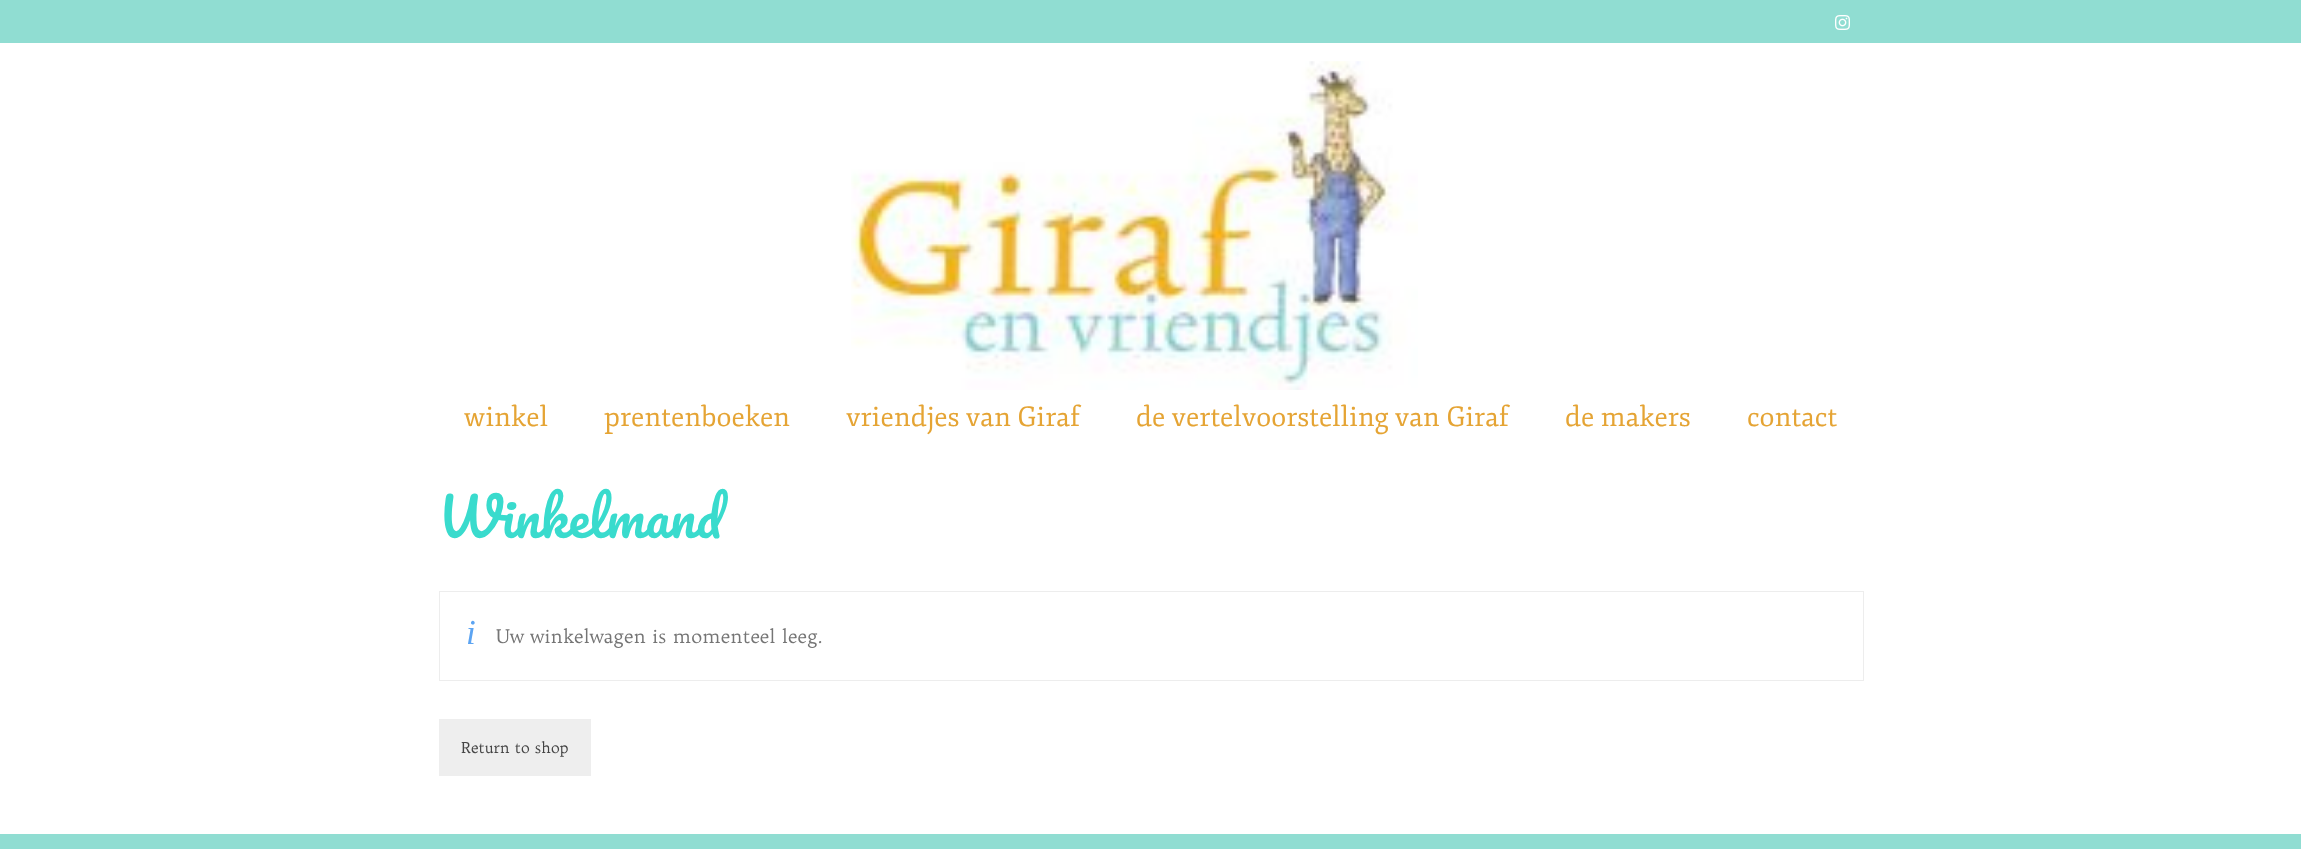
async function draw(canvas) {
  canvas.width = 2301
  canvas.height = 849
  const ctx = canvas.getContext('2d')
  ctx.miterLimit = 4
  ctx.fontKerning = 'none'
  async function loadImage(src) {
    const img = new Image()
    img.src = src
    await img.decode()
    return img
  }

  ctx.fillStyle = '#fff'
  ctx.fillRect(0, 0, 2301, 849)
  ctx.fillStyle = '#90ddd2'
  ctx.fillRect(0, 0, 2301, 43)
  ctx.drawImage(await loadImage('image0.png'), 1835, 15, 15, 15)
  ctx.drawImage(await loadImage('image1.png'), 851, 61, 567, 329)
  ctx.font = '27.5px Fjord'
  ctx.fillStyle = '#e5a434'
  ctx.fillText('winkel', 464, 426)
  ctx.fillText('prentenboeken', 604, 426)
  ctx.fillText('vriendjes van Giraf', 846, 426)
  ctx.fillText('de vertelvoorstelling van Giraf', 1136, 426)
  ctx.fillText('de makers', 1565, 426)
  ctx.fillText('contact', 1747, 426)
  ctx.font = '52.5px Pacifico'
  ctx.fillStyle = '#39dbcd'
  ctx.fillText('Winkelmand', 438, 538)
  ctx.strokeStyle = '#ededed'
  ctx.strokeRect(439.5, 591.5, 1424, 89)
  ctx.font = 'italic 35px Liberation Serif'
  ctx.fillStyle = '#5ca4f2'
  ctx.fillText('i', 466, 644)
  ctx.font = '18.75px Trykker'
  ctx.fillStyle = '#757575'
  ctx.fillText('Uw winkelwagen is momenteel leeg.', 496, 643)
  ctx.fillStyle = '#eee'
  ctx.fillRect(439, 719, 152, 57)
  ctx.font = '15px Trykker'
  ctx.fillStyle = '#444'
  ctx.fillText('Return to shop', 461, 753)
  ctx.fillStyle = '#90ddd2'
  ctx.fillRect(0, 834, 2301, 15)
}

draw(document.querySelector('canvas'))
